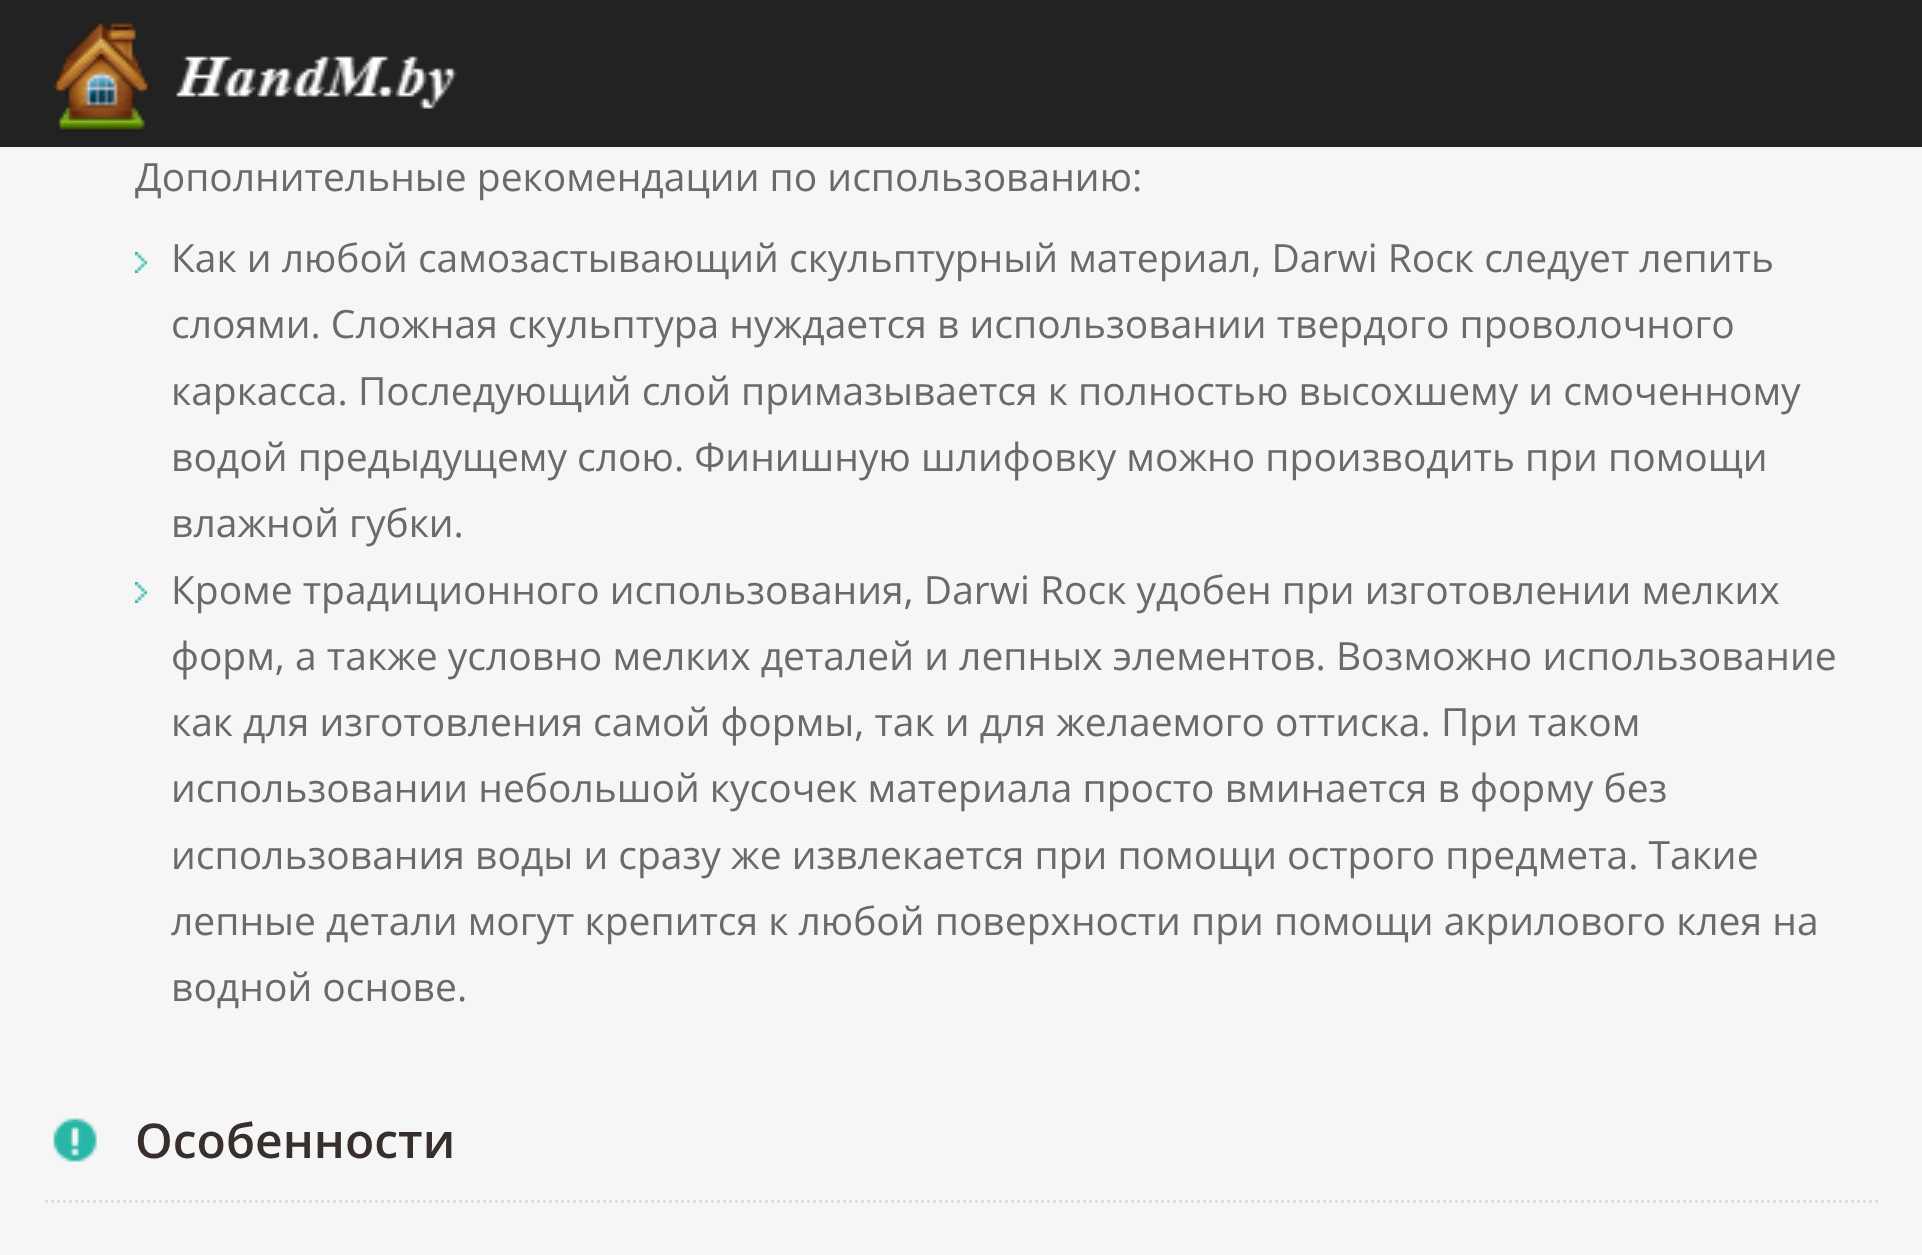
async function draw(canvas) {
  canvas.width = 1922
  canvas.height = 1255
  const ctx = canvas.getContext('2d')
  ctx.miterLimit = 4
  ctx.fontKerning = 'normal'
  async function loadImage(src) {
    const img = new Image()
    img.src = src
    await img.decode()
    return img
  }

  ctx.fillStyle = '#f6f6f6'
  ctx.fillRect(0, 0, 1922, 1255)
  ctx.fillStyle = '#222'
  ctx.fillRect(0, 0, 1922, 147)
  ctx.drawImage(await loadImage('image0.png'), 53, 21, 404, 111)
  ctx.font = '39px Open Sans'
  ctx.fillStyle = '#6a6a6a'
  ctx.fillText('Дополнительные рекомендации по использованию:', 135, 191)
  ctx.drawImage(await loadImage('image1.png'), 135, 252, 12, 21)
  ctx.fillText('Как и любой самозастывающий скульптурный материал, Darwi Rocк следует лепить', 171, 272)
  ctx.fillText('слоями. Сложная скульптура нуждается в использовании твердого проволочного', 171, 338)
  ctx.fillText('каркасса. Последующий слой примазывается к полностью высохшему и смоченному', 171, 405)
  ctx.fillText('водой предыдущему слою. Финишную шлифовку можно производить при помощи', 171, 471)
  ctx.fillText('влажной губки.', 171, 537)
  ctx.drawImage(await loadImage('image1.png'), 135, 582, 12, 21)
  ctx.fillText('Кроме традиционного использования, Darwi Rocк удобен при изготовлении мелких', 171, 604)
  ctx.fillText('форм, а также условно мелких деталей и лепных элементов. Возможно использование', 171, 670)
  ctx.fillText('как для изготовления самой формы, так и для желаемого оттиска. При таком', 171, 736)
  ctx.fillText('использовании небольшой кусочек материала просто вминается в форму без', 171, 802)
  ctx.fillText('использования воды и сразу же извлекается при помощи острого предмета. Такие', 171, 869)
  ctx.fillText('лепные детали могут крепится к любой поверхности при помощи акрилового клея на', 171, 935)
  ctx.fillText('водной основе.', 171, 1001)
  ctx.drawImage(await loadImage('image2.png'), 53, 1118, 44, 44)
  ctx.beginPath()
  ctx.moveTo(45, 1201.5)
  ctx.lineTo(1878, 1201.5)
  ctx.strokeStyle = '#e0e0e0'
  ctx.lineWidth = 3
  ctx.setLineDash([3, 3])
  ctx.stroke()
  ctx.font = '600 48px Open Sans'
  ctx.fillStyle = '#372f2b'
  ctx.fillText('Особенности', 135, 1158)
}

draw(document.querySelector('canvas'))
